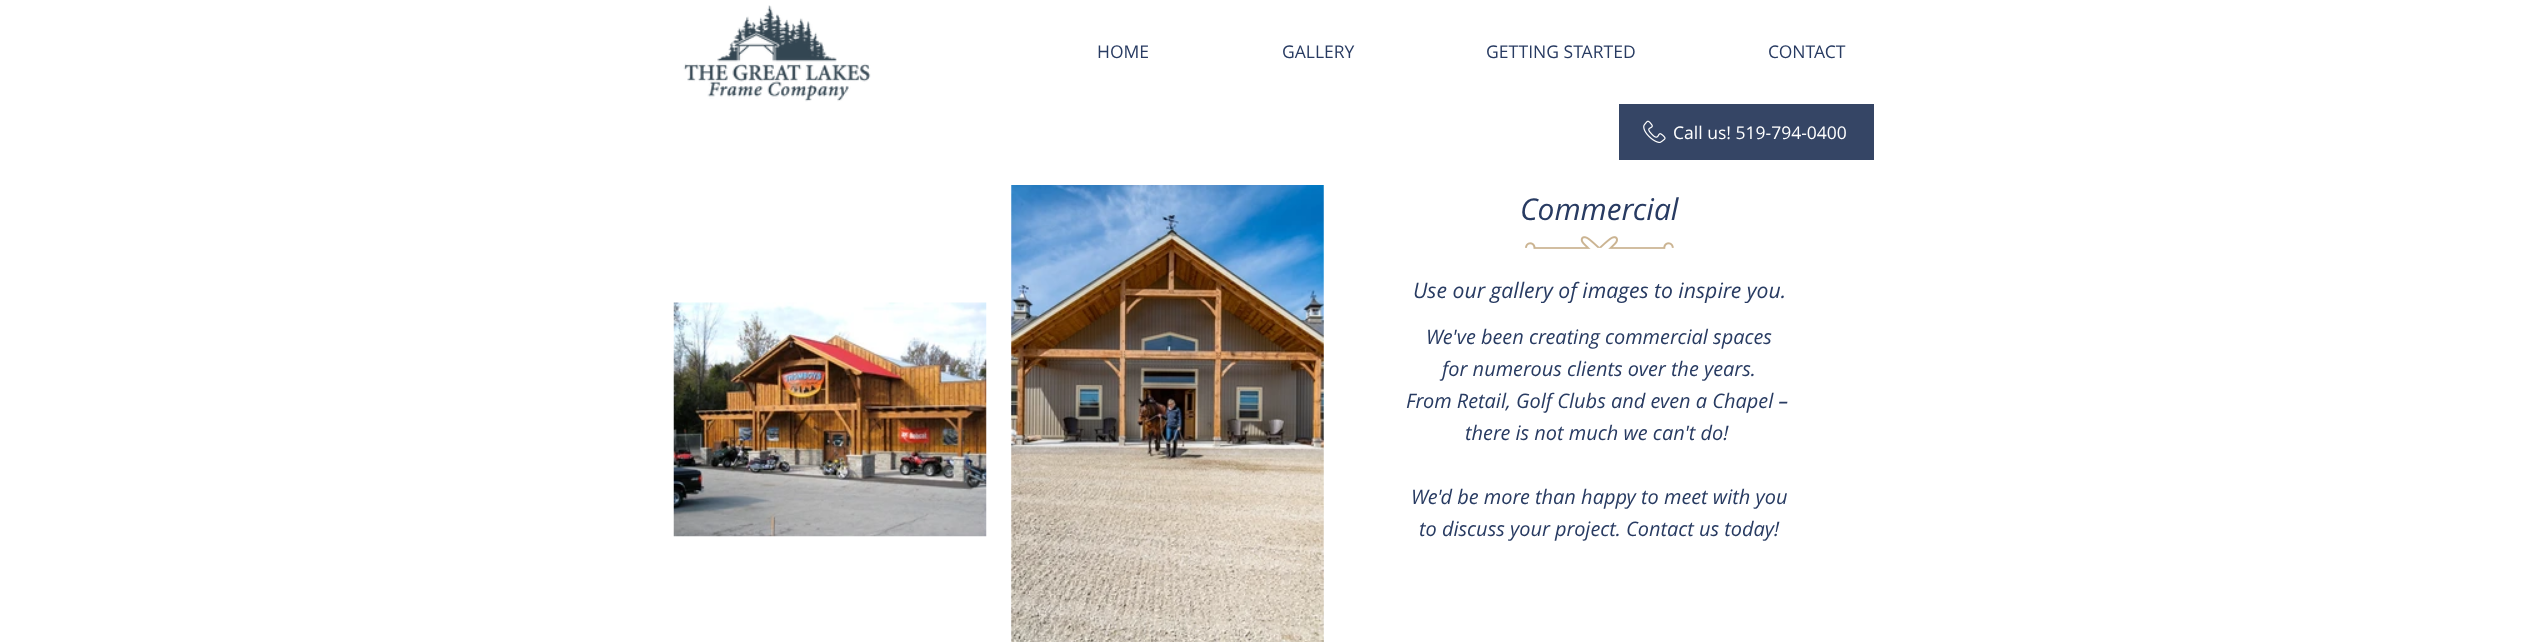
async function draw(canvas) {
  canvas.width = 2521
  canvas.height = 642
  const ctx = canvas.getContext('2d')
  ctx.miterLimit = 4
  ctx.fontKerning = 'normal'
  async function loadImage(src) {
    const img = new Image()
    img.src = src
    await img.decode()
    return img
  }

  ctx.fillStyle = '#fff'
  ctx.fillRect(0, 0, 2521, 642)
  ctx.drawImage(await loadImage('image0.png'), 683, 5, 188, 97)
  ctx.font = '17.5px Open Sans'
  ctx.fillStyle = '#283b62'
  ctx.fillText('HOME', 1097, 58)
  ctx.fillText('GALLERY', 1282, 58)
  ctx.fillText('GETTING STARTED', 1486, 58)
  ctx.fillText('CONTACT', 1768, 58)
  ctx.fillStyle = '#354565'
  ctx.fillRect(1619, 104, 255, 56)
  ctx.drawImage(await loadImage('image1.png'), 1643, 120, 23, 23)
  ctx.fillStyle = '#fff'
  ctx.fillText('Call us! 519-794-0400', 1673, 139)
  ctx.drawImage(await loadImage('image2.png'), 673, 302, 314, 235)
  ctx.drawImage(await loadImage('image3.png'), 1011, 185, 313, 457)
  ctx.font = 'italic 30px Open Sans'
  ctx.fillStyle = '#283b62'
  ctx.fillText('Commercial', 1520, 220)
  ctx.font = 'italic 21.25px Open Sans'
  ctx.fillText('Use our gallery of images to inspire you.', 1413, 298)
  ctx.font = 'italic 20px Open Sans'
  ctx.fillText('We\'ve been creating commercial spaces', 1426, 344)
  ctx.fillText('for numerous clients over the years.', 1442, 376)
  ctx.fillText('From Retail, Golf Clubs and even a Chapel –', 1406, 408)
  ctx.fillText('there is not much we can\'t do!', 1465, 440)
  ctx.fillText('We\'d be more than happy to meet with you', 1411, 504)
  ctx.fillText('to discuss your project. Contact us today!', 1419, 536)
  ctx.drawImage(await loadImage('image4.png'), 1525, 236, 149, 13)
}

draw(document.querySelector('canvas'))
